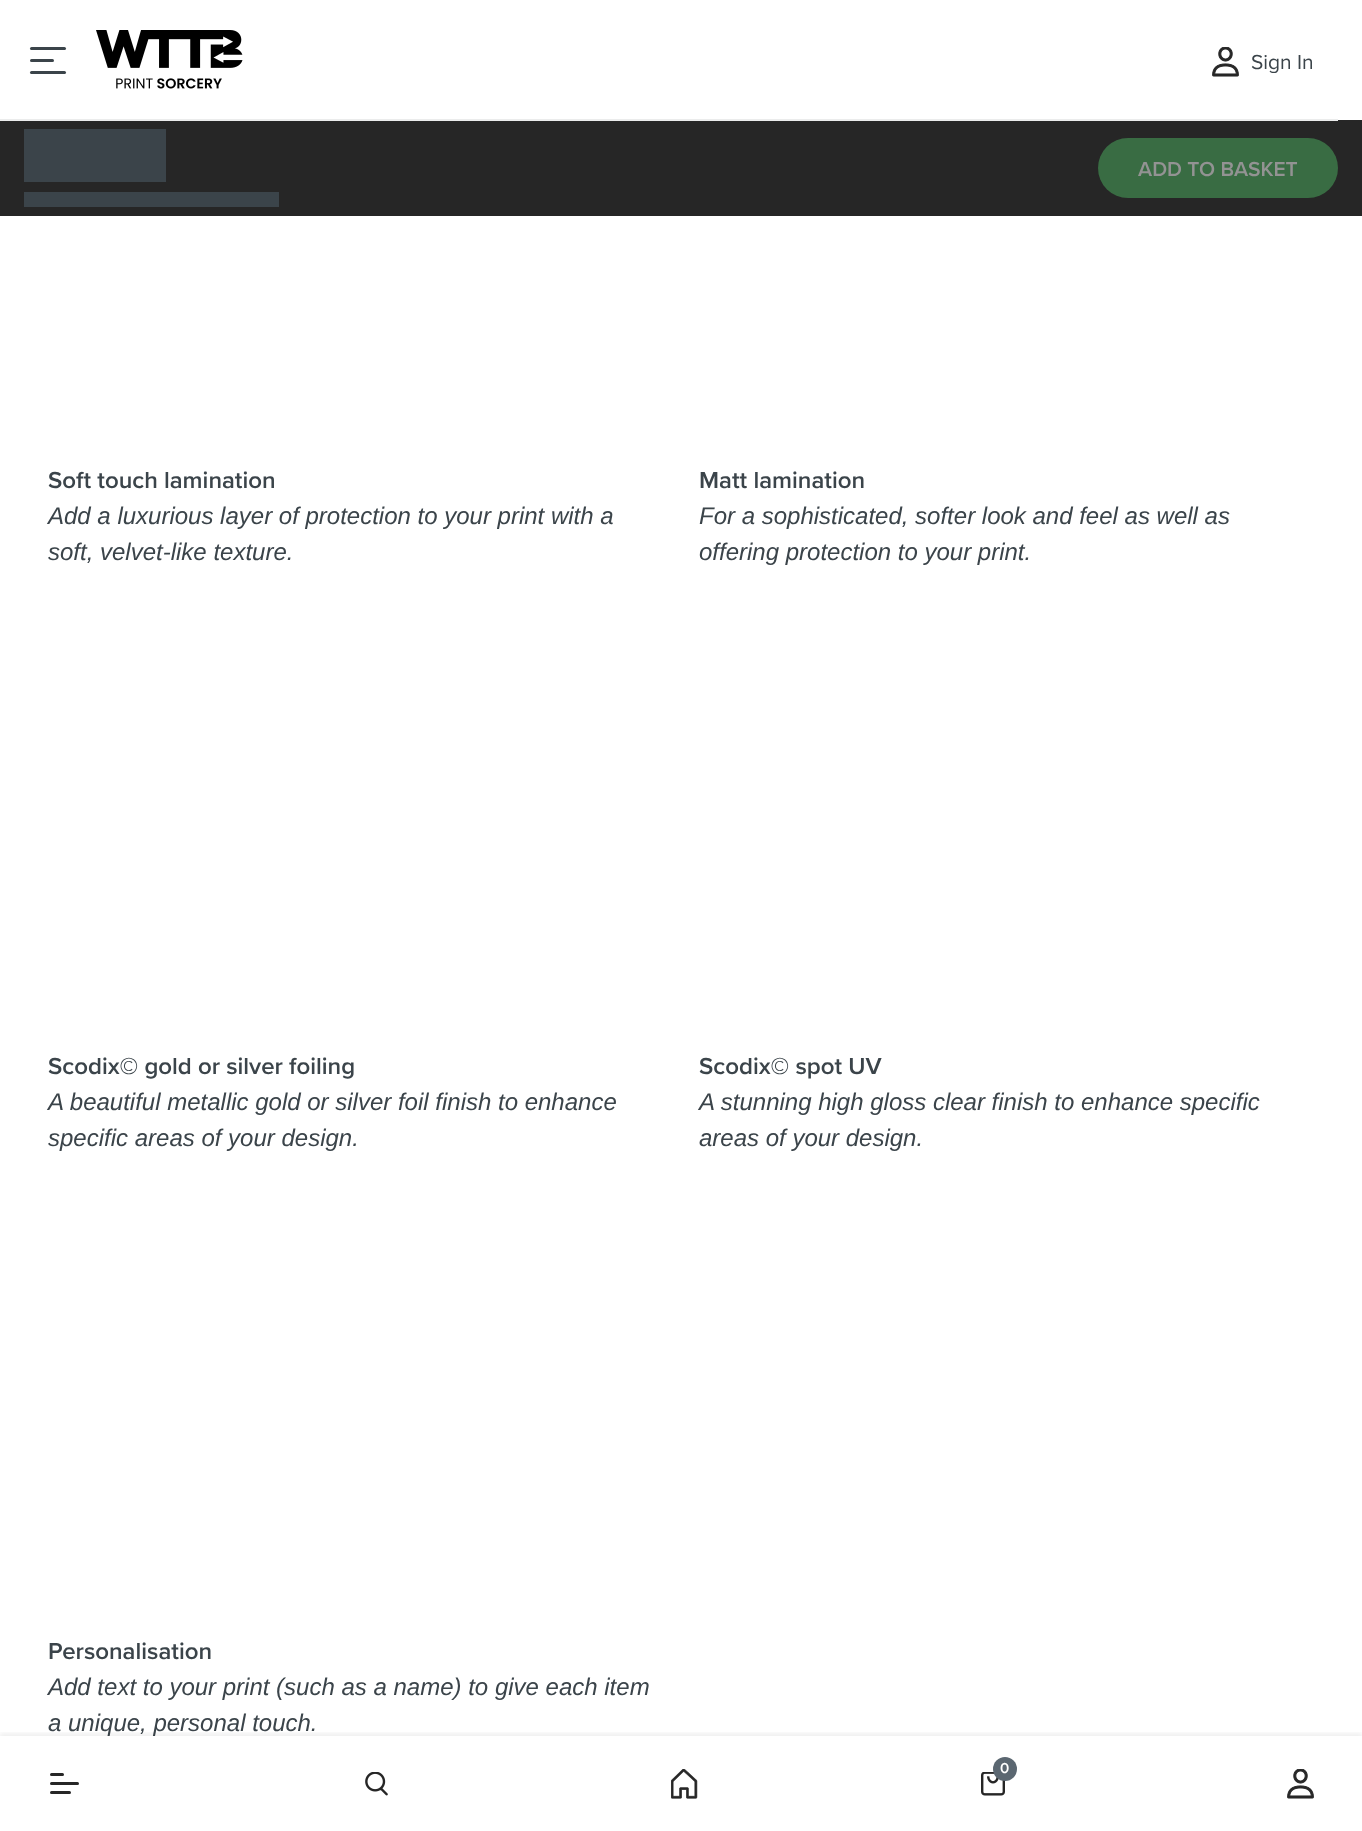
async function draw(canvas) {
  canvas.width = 1362
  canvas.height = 1831
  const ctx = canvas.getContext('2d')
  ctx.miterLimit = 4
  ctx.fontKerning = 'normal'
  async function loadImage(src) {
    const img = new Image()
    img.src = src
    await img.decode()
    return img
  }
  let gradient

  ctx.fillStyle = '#fff'
  ctx.fillRect(0, 0, 1362, 1831)
  ctx.fillStyle = '#3b444a'
  ctx.beginPath()
  ctx.roundRect(30, 47, 36, 3, 1.5)
  ctx.fill()
  ctx.beginPath()
  ctx.roundRect(30, 59, 24, 3, 1.5)
  ctx.fill()
  ctx.beginPath()
  ctx.roundRect(30, 71, 36, 3, 1.5)
  ctx.fill()
  ctx.drawImage(await loadImage('image0.png'), 96, 30, 147, 59)
  ctx.drawImage(await loadImage('image1.png'), 1212, 47, 27, 30)
  ctx.font = '21px Proxima Nova'
  ctx.fillText('Sign In', 1251, 69)
  ctx.fillStyle = '#262626'
  ctx.fillRect(0, 120, 1362, 96)
  ctx.fillStyle = '#ebecec'
  ctx.fillRect(0, 119, 1338, 2)
  gradient = ctx.createLinearGradient(-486, 129, -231, 129)
  gradient.addColorStop(0, '#3b444a')
  gradient.addColorStop(0.5, '#cfc9c9')
  gradient.addColorStop(1, '#3b444a')
  ctx.fillStyle = gradient
  ctx.beginPath()
  ctx.moveTo(24, 129)
  ctx.lineTo(24, 182)
  ctx.lineTo(166, 182)
  ctx.lineTo(166, 129)
  ctx.closePath()
  ctx.moveTo(24, 192)
  ctx.lineTo(24, 207)
  ctx.lineTo(279, 207)
  ctx.lineTo(279, 192)
  ctx.closePath()
  ctx.fill('evenodd')
  ctx.fillStyle = '#396c43'
  ctx.beginPath()
  ctx.roundRect(1098, 138, 240, 60, 30)
  ctx.fill()
  ctx.font = '600 21px Proxima Nova'
  ctx.fillStyle = '#939393'
  ctx.fillText('ADD TO BASKET', 1138, 176)
  ctx.font = '600 24px Proxima Nova'
  ctx.fillStyle = '#3b444a'
  ctx.fillText('Soft touch lamination', 48, 488)
  ctx.font = 'italic 24px Liberation Sans'
  ctx.fillText('Add a luxurious layer of protection to your print with a', 48, 524)
  ctx.fillText('soft, velvet-like texture.', 48, 560)
  ctx.font = '600 24px Proxima Nova'
  ctx.fillText('Matt lamination', 699, 488)
  ctx.font = 'italic 24px Liberation Sans'
  ctx.fillText('For a sophisticated, softer look and feel as well as', 699, 524)
  ctx.fillText('offering protection to your print.', 699, 560)
  ctx.font = '600 24px Proxima Nova'
  ctx.fillText('Scodix© gold or silver foiling', 48, 1074)
  ctx.font = 'italic 24px Liberation Sans'
  ctx.fillText('A beautiful metallic gold or silver foil finish to enhance', 48, 1110)
  ctx.fillText('specific areas of your design.', 48, 1146)
  ctx.font = '600 24px Proxima Nova'
  ctx.fillText('Scodix© spot UV', 699, 1074)
  ctx.font = 'italic 24px Liberation Sans'
  ctx.fillText('A stunning high gloss clear finish to enhance specific', 699, 1110)
  ctx.fillText('areas of your design.', 699, 1146)
  ctx.font = '600 24px Proxima Nova'
  ctx.fillText('Personalisation', 48, 1659)
  ctx.font = 'italic 24px Liberation Sans'
  ctx.fillText('Add text to your print (such as a name) to give each item', 48, 1695)
  ctx.fillText('a unique, personal touch.', 48, 1731)
  ctx.save()
  ctx.beginPath()
  ctx.rect(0, 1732, 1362, 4)
  ctx.clip()
  ctx.fillStyle = '#0000000f'
  ctx.filter = 'blur(2px)'
  ctx.beginPath()
  ctx.rect(0, 1733, 1362, 96)
  ctx.fill()
  ctx.filter = 'none'
  ctx.restore()
  ctx.fillStyle = '#262626'
  ctx.beginPath()
  ctx.roundRect(50, 1773, 14, 3, 1.5)
  ctx.fill()
  ctx.beginPath()
  ctx.roundRect(50, 1782, 29, 3, 1.5)
  ctx.fill()
  ctx.beginPath()
  ctx.roundRect(50, 1791, 21, 3, 1.5)
  ctx.fill()
  ctx.drawImage(await loadImage('image2.png'), 365, 1772, 23, 24)
  ctx.drawImage(await loadImage('image3.png'), 671, 1769, 27, 30)
  ctx.drawImage(await loadImage('image4.png'), 981, 1772, 24, 24)
  ctx.fillStyle = '#5b6771'
  ctx.beginPath()
  ctx.arc(1005, 1769, 12, 0, 2 * Math.PI)
  ctx.fill()
  ctx.font = '600 15px Proxima Nova'
  ctx.fillStyle = '#fff'
  ctx.fillText('0', 1000, 1773)
  ctx.drawImage(await loadImage('image1.png'), 1287, 1769, 27, 30)
}

draw(document.querySelector('canvas'))
